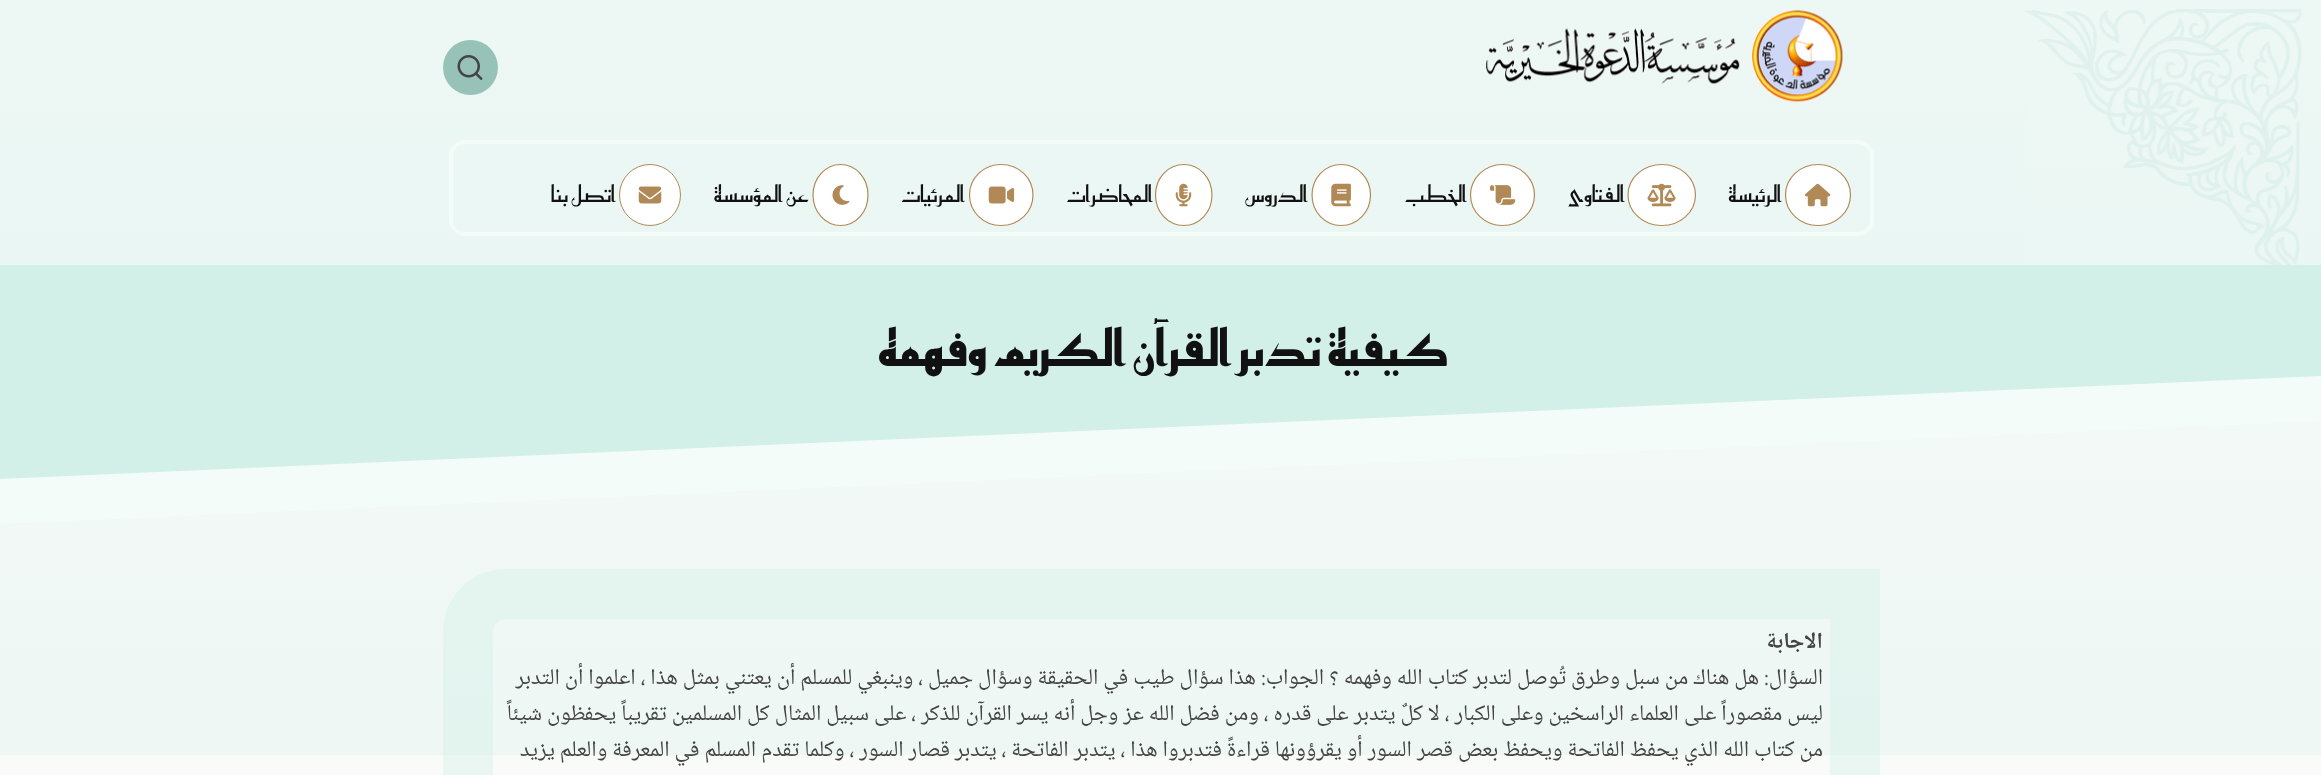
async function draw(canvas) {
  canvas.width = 2321
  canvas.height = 775
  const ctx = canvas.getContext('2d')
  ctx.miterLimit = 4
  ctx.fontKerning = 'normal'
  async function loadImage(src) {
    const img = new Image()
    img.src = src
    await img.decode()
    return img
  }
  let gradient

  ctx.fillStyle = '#fff'
  ctx.fillRect(0, 0, 2321, 775)
  gradient = ctx.createLinearGradient(1161, -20, 1161, 755)
  gradient.addColorStop(0, '#f9fbf9')
  gradient.addColorStop(1, '#eef7f4')
  ctx.fillStyle = gradient
  ctx.fillRect(0, 0, 2321, 755)
  gradient = ctx.createLinearGradient(1161, 755, 1161, 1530)
  gradient.addColorStop(0, '#f9fbf9')
  gradient.addColorStop(1, '#eef7f4')
  ctx.fillStyle = gradient
  ctx.fillRect(0, 755, 2321, 20)
  ctx.drawImage(await loadImage('image0.png'), 2025, 9, 277, 256)
  ctx.fillStyle = '#d2efe847'
  ctx.fillRect(0, 0, 2321, 265)
  ctx.drawImage(await loadImage('image1.png'), 1486, 10, 357, 92)
  ctx.fillStyle = '#97c2b8'
  ctx.beginPath()
  ctx.arc(470.5, 67.5, 27.5, 0, 2 * Math.PI)
  ctx.fill()
  ctx.drawImage(await loadImage('image2.png'), 457, 55, 26, 25)
  ctx.beginPath()
  ctx.roundRect(451, 142, 1421, 92, 14)
  ctx.strokeStyle = '#f4fcfa'
  ctx.lineWidth = 4
  ctx.stroke()
  ctx.fillStyle = '#fff'
  ctx.beginPath()
  ctx.ellipse(1818, 195, 33, 31, 0, 0, 2 * Math.PI)
  ctx.fill()
  ctx.beginPath()
  ctx.moveTo(1818, 164.5)
  ctx.bezierCurveTo(1836, 164.5, 1850.5, 178, 1850.5, 195)
  ctx.bezierCurveTo(1850.5, 212, 1836, 225.5, 1818, 225.5)
  ctx.bezierCurveTo(1800, 225.5, 1785.5, 212, 1785.5, 195)
  ctx.bezierCurveTo(1785.5, 178, 1800, 164.5, 1818, 164.5)
  ctx.closePath()
  ctx.strokeStyle = '#b18957'
  ctx.lineWidth = 1.2
  ctx.stroke()
  ctx.drawImage(await loadImage('image3.png'), 1805, 183, 26, 24)
  ctx.direction = 'rtl'
  ctx.font = '22.5px Reem Kufi'
  ctx.fillStyle = '#111'
  ctx.fillText('الرئيسة', 1782, 202)
  ctx.fillStyle = '#fff'
  ctx.beginPath()
  ctx.ellipse(1662, 195, 34.5, 31, 0, 0, 2 * Math.PI)
  ctx.fill()
  ctx.beginPath()
  ctx.moveTo(1662, 164.5)
  ctx.bezierCurveTo(1680.5, 164.5, 1695.5, 178, 1695.5, 195)
  ctx.bezierCurveTo(1695.5, 212, 1680.5, 225.5, 1662, 225.5)
  ctx.bezierCurveTo(1643, 225.5, 1628, 212, 1628, 195)
  ctx.bezierCurveTo(1628, 178, 1643, 164.5, 1662, 164.5)
  ctx.closePath()
  ctx.stroke()
  ctx.drawImage(await loadImage('image4.png'), 1647, 183, 29, 24)
  ctx.fillStyle = '#111'
  ctx.fillText('الفتاوى', 1625, 202)
  ctx.fillStyle = '#fff'
  ctx.beginPath()
  ctx.ellipse(1502.5, 195, 32.5, 31, 0, 0, 2 * Math.PI)
  ctx.fill()
  ctx.beginPath()
  ctx.moveTo(1502.5, 164.5)
  ctx.bezierCurveTo(1520, 164.5, 1534.5, 178, 1534.5, 195)
  ctx.bezierCurveTo(1534.5, 212, 1520, 225.5, 1502.5, 225.5)
  ctx.bezierCurveTo(1485, 225.5, 1470.5, 212, 1470.5, 195)
  ctx.bezierCurveTo(1470.5, 178, 1485, 164.5, 1502.5, 164.5)
  ctx.closePath()
  ctx.stroke()
  ctx.drawImage(await loadImage('image5.png'), 1490, 185, 26, 20)
  ctx.fillStyle = '#111'
  ctx.fillText('الخطب', 1467, 202)
  ctx.fillStyle = '#fff'
  ctx.beginPath()
  ctx.ellipse(1341, 195, 30, 31, 0, 0, 2 * Math.PI)
  ctx.fill()
  ctx.beginPath()
  ctx.moveTo(1341, 164.5)
  ctx.bezierCurveTo(1357.5, 164.5, 1370.5, 178, 1370.5, 195)
  ctx.bezierCurveTo(1370.5, 212, 1357.5, 225.5, 1341, 225.5)
  ctx.bezierCurveTo(1325, 225.5, 1312, 212, 1312, 195)
  ctx.bezierCurveTo(1312, 178, 1325, 164.5, 1341, 164.5)
  ctx.closePath()
  ctx.stroke()
  ctx.drawImage(await loadImage('image6.png'), 1331, 183, 20, 24)
  ctx.fillStyle = '#111'
  ctx.fillText('الدروس', 1308, 202)
  ctx.fillStyle = '#fff'
  ctx.beginPath()
  ctx.ellipse(1184, 195, 29, 31, 0, 0, 2 * Math.PI)
  ctx.fill()
  ctx.beginPath()
  ctx.moveTo(1184, 164.5)
  ctx.bezierCurveTo(1199.5, 164.5, 1212, 178, 1212, 195)
  ctx.bezierCurveTo(1212, 212, 1199.5, 225.5, 1184, 225.5)
  ctx.bezierCurveTo(1168, 225.5, 1155.5, 212, 1155.5, 195)
  ctx.bezierCurveTo(1155.5, 178, 1168, 164.5, 1184, 164.5)
  ctx.closePath()
  ctx.stroke()
  ctx.drawImage(await loadImage('image7.png'), 1175, 183, 17, 24)
  ctx.fillStyle = '#111'
  ctx.fillText('المحاضرات', 1153, 202)
  ctx.fillStyle = '#fff'
  ctx.beginPath()
  ctx.ellipse(1001, 195, 32.5, 31, 0, 0, 2 * Math.PI)
  ctx.fill()
  ctx.beginPath()
  ctx.moveTo(1001, 164.5)
  ctx.bezierCurveTo(1019, 164.5, 1033, 178, 1033, 195)
  ctx.bezierCurveTo(1033, 212, 1019, 225.5, 1001, 225.5)
  ctx.bezierCurveTo(983.5, 225.5, 969.5, 212, 969.5, 195)
  ctx.bezierCurveTo(969.5, 178, 983.5, 164.5, 1001, 164.5)
  ctx.closePath()
  ctx.stroke()
  ctx.drawImage(await loadImage('image8.png'), 988, 186, 27, 18)
  ctx.fillStyle = '#111'
  ctx.fillText('المرئيات', 965, 202)
  ctx.fillStyle = '#fff'
  ctx.beginPath()
  ctx.ellipse(840.5, 195, 28, 31, 0, 0, 2 * Math.PI)
  ctx.fill()
  ctx.beginPath()
  ctx.moveTo(840.5, 164.5)
  ctx.bezierCurveTo(856, 164.5, 868, 178, 868, 195)
  ctx.bezierCurveTo(868, 212, 856, 225.5, 840.5, 225.5)
  ctx.bezierCurveTo(825.5, 225.5, 813, 212, 813, 195)
  ctx.bezierCurveTo(813, 178, 825.5, 164.5, 840.5, 164.5)
  ctx.closePath()
  ctx.stroke()
  ctx.drawImage(await loadImage('image9.png'), 832, 185, 18, 20)
  ctx.fillStyle = '#111'
  ctx.fillText('عن المؤسسة', 809, 202)
  ctx.fillStyle = '#fff'
  ctx.beginPath()
  ctx.arc(650, 195, 30.5, 0, 2 * Math.PI)
  ctx.fill()
  ctx.lineWidth = 1
  ctx.stroke()
  ctx.drawImage(await loadImage('image10.png'), 638, 186, 24, 18)
  ctx.fillStyle = '#111'
  ctx.fillText('اتصل بنا', 616, 202)
  ctx.fillStyle = '#f4fcfa'
  ctx.beginPath()
  ctx.moveTo(0, 265)
  ctx.lineTo(0, 524)
  ctx.lineTo(2321, 421)
  ctx.lineTo(2321, 265)
  ctx.closePath()
  ctx.fill()
  ctx.fillStyle = '#d2efe8'
  ctx.beginPath()
  ctx.moveTo(0, 265)
  ctx.lineTo(0, 479)
  ctx.lineTo(2321, 376)
  ctx.lineTo(2321, 265)
  ctx.closePath()
  ctx.fill()
  ctx.font = 'bold 49.5px Reem Kufi'
  ctx.fillStyle = '#111'
  ctx.fillText('كيفية تدبر القرآن الكريم وفهمه', 1448, 366)
  ctx.beginPath()
  ctx.moveTo(506, 594)
  ctx.lineTo(1855, 594)
  ctx.lineTo(1855, 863)
  ctx.lineTo(468, 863)
  ctx.lineTo(468, 632)
  ctx.bezierCurveTo(468, 611, 485, 594, 506, 594)
  ctx.closePath()
  ctx.strokeStyle = '#d2efe866'
  ctx.lineWidth = 50
  ctx.stroke()
  ctx.font = 'bold 22.5px Noto Naskh Arabic'
  ctx.fillStyle = '#444'
  ctx.fillText('الاجابة', 1823, 648)
  ctx.font = '22.5px Noto Naskh Arabic'
  ctx.fillText('السؤال: هل هناك من سبل وطرق تُوصل لتدبر كتاب الله وفهمه ؟', 1823, 684)
  ctx.fillText('الجواب: هذا سؤال طيب في الحقيقة وسؤال جميل ، وينبغي للمسلم أن يعتني بمثل هذا ، اعلموا أن التدبر', 1324, 684)
  ctx.fillText('ليس مقصوراً على العلماء الراسخين وعلى الكبار ، لا كلٌ يتدبر على قدره ، ومن فضل الله عز وجل أنه يسر القرآن للذكر ، على سبيل المثال كل المسلمين تقريباً يحفظون شيئاً', 1823, 720)
  ctx.fillText('من كتاب الله الذي يحفظ الفاتحة ويحفظ بعض قصر السور أو يقرؤونها قراءةً فتدبروا هذا ، يتدبر الفاتحة ، يتدبر قصار السور ، وكلما تقدم المسلم في المعرفة والعلم يزيد', 1823, 756)
}

draw(document.querySelector('canvas'))
